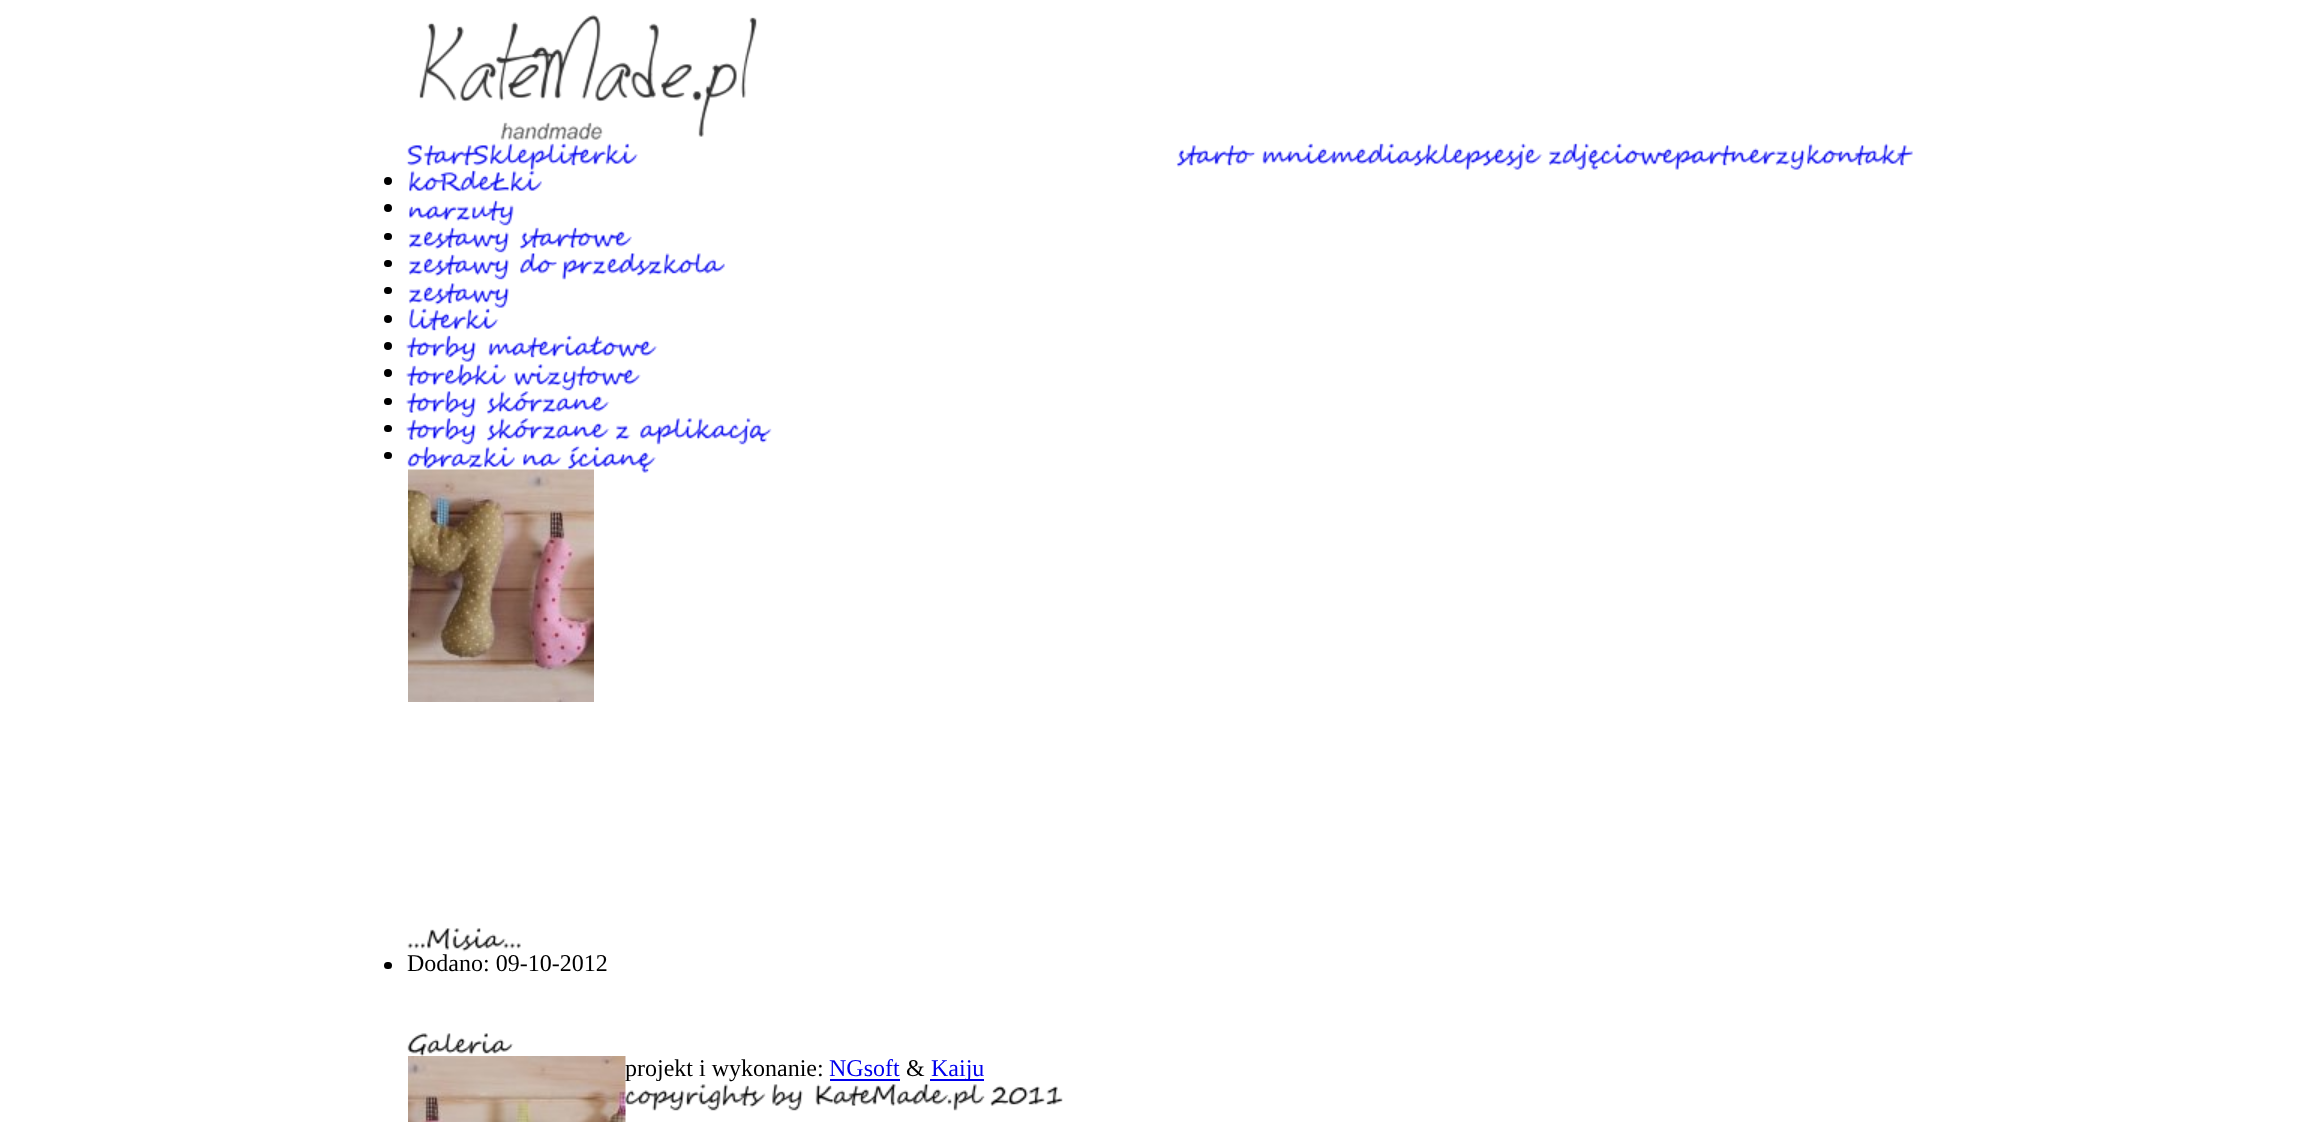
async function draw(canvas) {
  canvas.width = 2314
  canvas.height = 1122
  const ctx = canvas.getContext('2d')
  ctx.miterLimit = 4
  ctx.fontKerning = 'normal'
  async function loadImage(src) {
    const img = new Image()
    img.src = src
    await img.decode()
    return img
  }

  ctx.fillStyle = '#fff'
  ctx.fillRect(0, 0, 2314, 1122)
  ctx.drawImage(await loadImage('image0.png'), 419, 14, 338, 126)
  ctx.drawImage(await loadImage('image1.png'), 1176, 145, 65, 22)
  ctx.drawImage(await loadImage('image2.png'), 1235, 149, 21, 15)
  ctx.drawImage(await loadImage('image3.png'), 1262, 143, 72, 21)
  ctx.drawImage(await loadImage('image4.png'), 1331, 143, 87, 21)
  ctx.drawImage(await loadImage('image5.png'), 1413, 143, 74, 27)
  ctx.drawImage(await loadImage('image6.png'), 1482, 143, 61, 27)
  ctx.drawImage(await loadImage('image7.png'), 1548, 143, 131, 27)
  ctx.drawImage(await loadImage('image8.png'), 1675, 145, 130, 25)
  ctx.drawImage(await loadImage('image9.png'), 1807, 143, 106, 23)
  ctx.drawImage(await loadImage('image10.png'), 406, 145, 73, 21)
  ctx.drawImage(await loadImage('image11.png'), 472, 143, 79, 27)
  ctx.drawImage(await loadImage('image12.png'), 548, 143, 90, 23)
  ctx.fillStyle = '#000'
  ctx.beginPath()
  ctx.arc(388, 181, 4, 0, 2 * Math.PI)
  ctx.fill()
  ctx.drawImage(await loadImage('image13.png'), 409, 170, 133, 22)
  ctx.beginPath()
  ctx.arc(388, 208, 4, 0, 2 * Math.PI)
  ctx.fill()
  ctx.drawImage(await loadImage('image14.png'), 409, 200, 105, 26)
  ctx.beginPath()
  ctx.roundRect(384, 233, 8, 7, 3.5)
  ctx.fill()
  ctx.drawImage(await loadImage('image15.png'), 408, 227, 101, 26)
  ctx.drawImage(await loadImage('image16.png'), 519, 227, 113, 23)
  ctx.beginPath()
  ctx.roundRect(384, 260, 8, 7, 3.5)
  ctx.fill()
  ctx.drawImage(await loadImage('image15.png'), 408, 254, 101, 26)
  ctx.drawImage(await loadImage('image17.png'), 520, 253, 37, 21)
  ctx.drawImage(await loadImage('image18.png'), 562, 253, 163, 27)
  ctx.beginPath()
  ctx.roundRect(384, 287, 8, 7, 3.5)
  ctx.fill()
  ctx.drawImage(await loadImage('image19.png'), 408, 283, 101, 25)
  ctx.beginPath()
  ctx.arc(388, 319, 4, 0, 2 * Math.PI)
  ctx.fill()
  ctx.drawImage(await loadImage('image20.png'), 409, 308, 90, 23)
  ctx.beginPath()
  ctx.arc(388, 346, 4, 0, 2 * Math.PI)
  ctx.fill()
  ctx.drawImage(await loadImage('image21.png'), 406, 335, 70, 27)
  ctx.drawImage(await loadImage('image22.png'), 488, 335, 170, 23)
  ctx.beginPath()
  ctx.arc(388, 373, 4, 0, 2 * Math.PI)
  ctx.fill()
  ctx.drawImage(await loadImage('image23.png'), 406, 364, 101, 22)
  ctx.drawImage(await loadImage('image24.png'), 514, 364, 127, 27)
  ctx.beginPath()
  ctx.roundRect(384, 398, 8, 7, 3.5)
  ctx.fill()
  ctx.drawImage(await loadImage('image25.png'), 406, 391, 70, 27)
  ctx.drawImage(await loadImage('image26.png'), 486, 391, 124, 24)
  ctx.beginPath()
  ctx.roundRect(384, 425, 8, 7, 3.5)
  ctx.fill()
  ctx.drawImage(await loadImage('image25.png'), 406, 418, 70, 27)
  ctx.drawImage(await loadImage('image26.png'), 486, 418, 124, 24)
  ctx.drawImage(await loadImage('image27.png'), 615, 425, 16, 15)
  ctx.drawImage(await loadImage('image28.png'), 640, 418, 132, 27)
  ctx.beginPath()
  ctx.roundRect(384, 452, 8, 7, 3.5)
  ctx.fill()
  ctx.drawImage(await loadImage('image29.png'), 407, 446, 108, 23)
  ctx.drawImage(await loadImage('image30.png'), 523, 452, 39, 15)
  ctx.drawImage(await loadImage('image32.png'), 408, 469, 186, 233)
  ctx.drawImage(await loadImage('image31.png'), 567, 445, 89, 28)
  ctx.drawImage(await loadImage('image33.png'), 407, 928, 114, 24)
  ctx.beginPath()
  ctx.roundRect(384, 962, 8, 7, 3.5)
  ctx.fill()
  ctx.font = '24px Liberation Serif'
  ctx.fillText('Dodano: 09-10-2012', 407, 971)
  ctx.drawImage(await loadImage('image35.png'), 408, 1056, 218, 66)
  ctx.drawImage(await loadImage('image34.png'), 407, 1033, 107, 24)
  ctx.fillText('projekt i wykonanie:', 625, 1076)
  ctx.fillStyle = '#00e'
  ctx.fillText('NGsoft', 829, 1076)
  ctx.fillRect(830, 1079, 70, 2)
  ctx.fillStyle = '#000'
  ctx.fillText('&', 906, 1076)
  ctx.fillStyle = '#00e'
  ctx.fillRect(930, 1079, 54, 2)
  ctx.fillText('Kaiju', 931, 1076)
  ctx.drawImage(await loadImage('image36.png'), 625, 1084, 141, 27)
  ctx.drawImage(await loadImage('image37.png'), 772, 1084, 31, 27)
  ctx.drawImage(await loadImage('image38.png'), 815, 1084, 170, 27)
  ctx.drawImage(await loadImage('image39.png'), 990, 1085, 73, 21)
}

draw(document.querySelector('canvas'))
